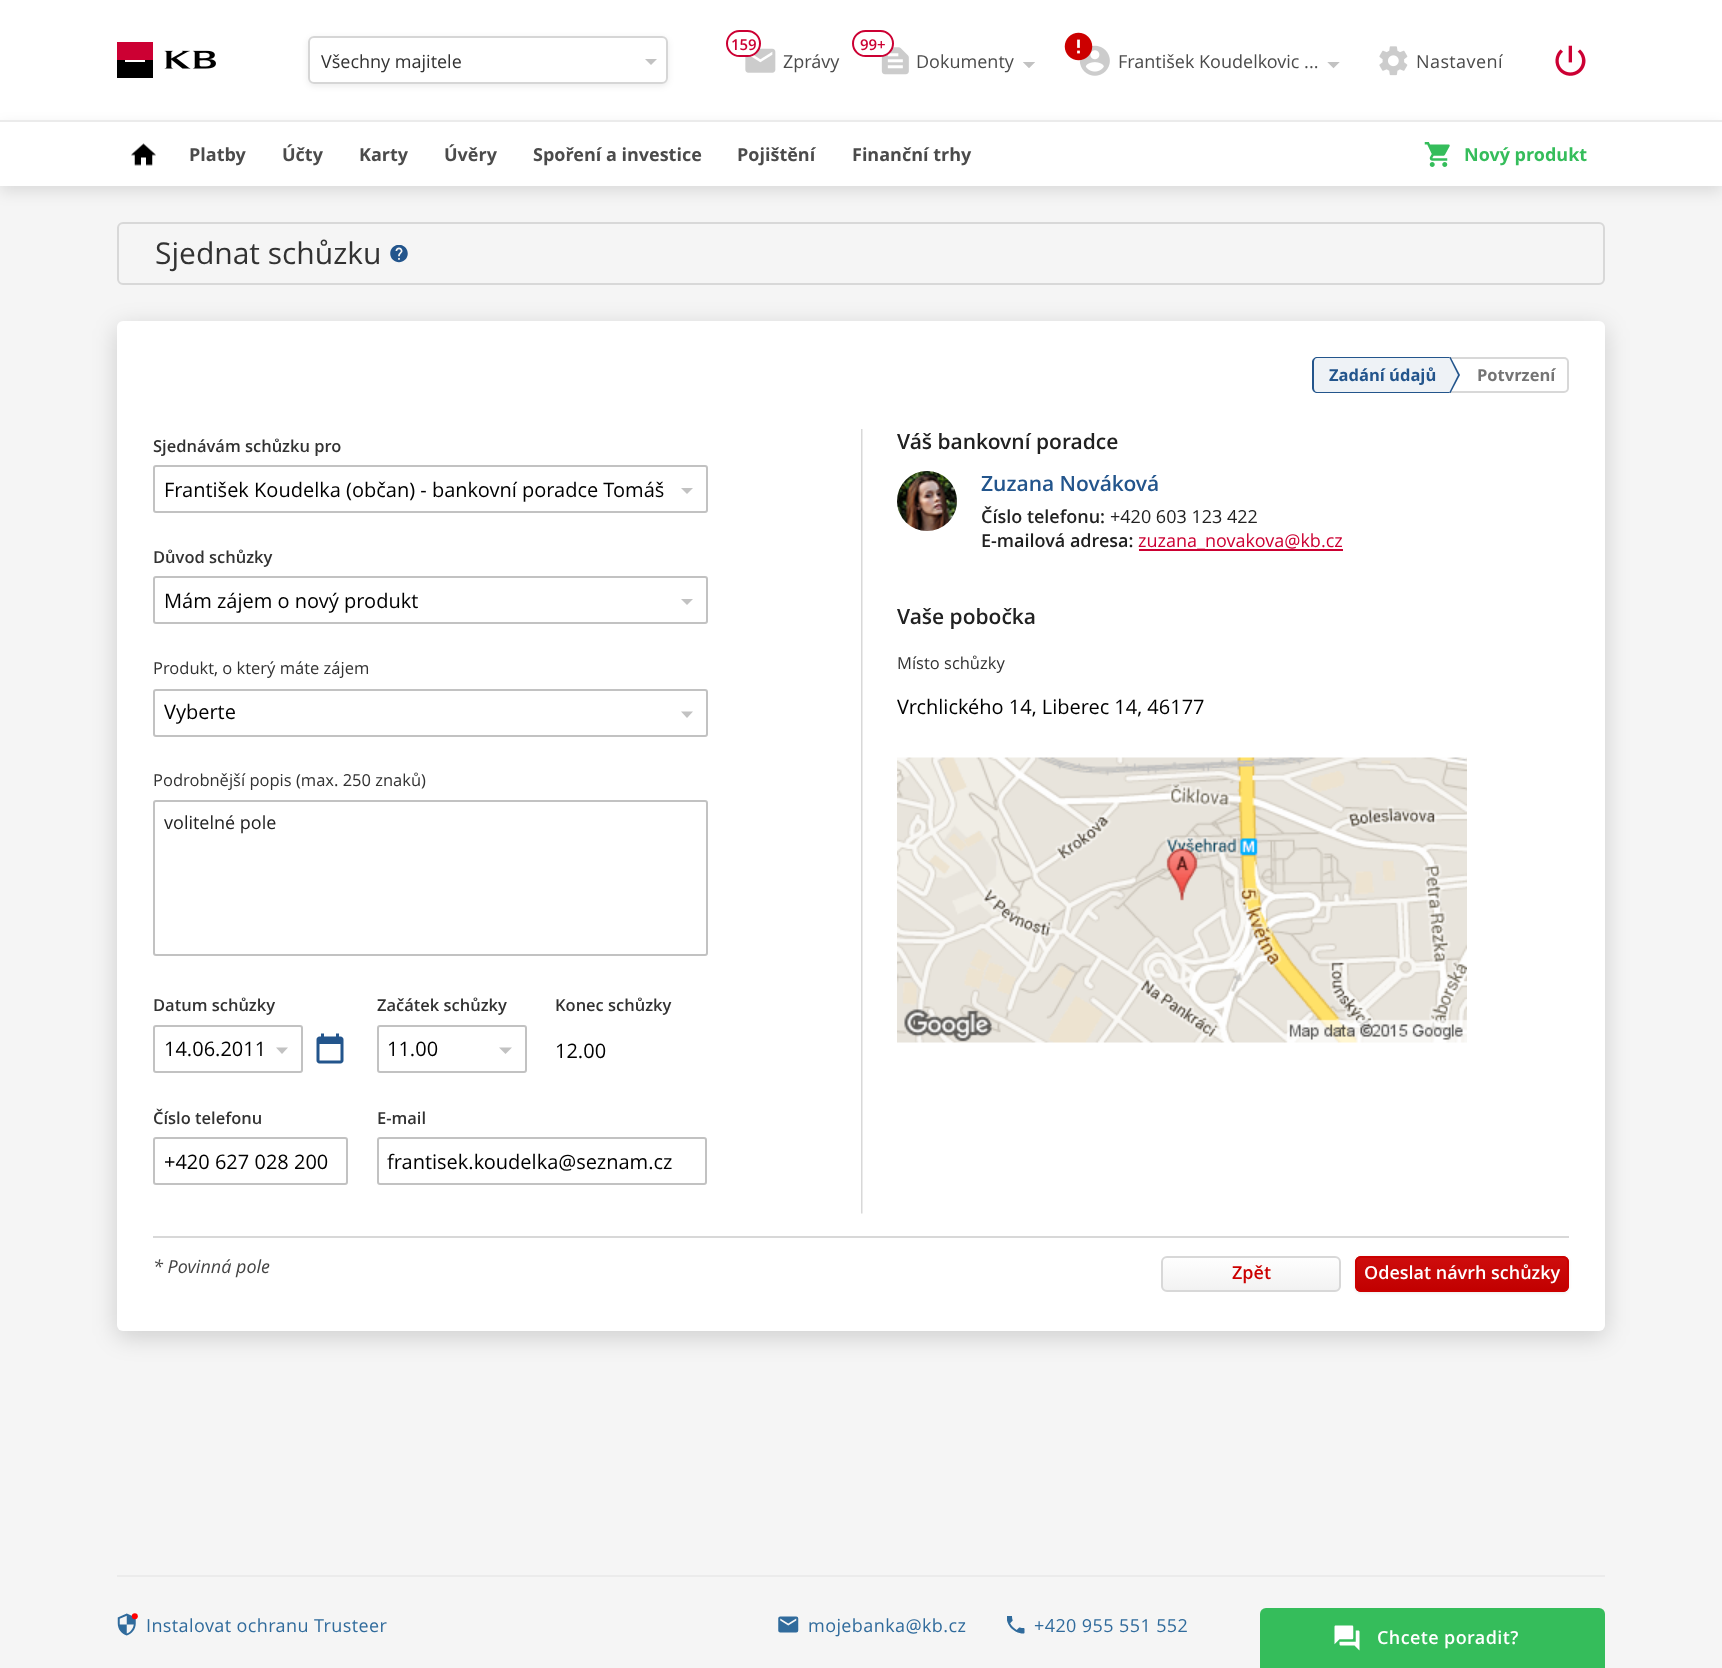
async function draw(canvas) {
  canvas.width = 1722
  canvas.height = 1668
  const ctx = canvas.getContext('2d')
  ctx.miterLimit = 4
  ctx.fontKerning = 'normal'
  async function loadImage(src) {
    const img = new Image()
    img.src = src
    await img.decode()
    return img
  }
  let gradient

  ctx.fillStyle = '#f5f5f5'
  ctx.fillRect(0, 0, 1722, 1668)
  ctx.fillStyle = '#fff'
  ctx.fillRect(0, 0, 1722, 120)
  ctx.drawImage(await loadImage('image0.png'), 117, 42, 99, 36)
  ctx.fillStyle = '#00000014'
  ctx.filter = 'blur(3px)'
  ctx.beginPath()
  ctx.roundRect(308, 38, 360, 48, 6)
  ctx.fill()
  ctx.filter = 'none'
  ctx.fillStyle = '#fff'
  ctx.beginPath()
  ctx.roundRect(308, 36, 360, 48, 6)
  ctx.fill()
  ctx.fillStyle = '#c2c2c2'
  ctx.beginPath()
  ctx.moveTo(645, 59)
  ctx.lineTo(651, 65)
  ctx.lineTo(657, 59)
  ctx.closePath()
  ctx.fill()
  ctx.beginPath()
  ctx.roundRect(309, 37, 358, 46, 5)
  ctx.strokeStyle = '#d6d6d6'
  ctx.lineWidth = 2
  ctx.stroke()
  ctx.font = '18px Open Sans'
  ctx.fillStyle = '#323232'
  ctx.fillText('Všechny majitele', 321, 68)
  ctx.drawImage(await loadImage('image1.png'), 745, 48, 31, 25)
  ctx.fillStyle = '#fff'
  ctx.beginPath()
  ctx.roundRect(727, 31, 33, 25, 12.5)
  ctx.fill()
  ctx.strokeStyle = '#c03'
  ctx.stroke()
  ctx.font = '600 15px Open Sans'
  ctx.fillStyle = '#cc0032'
  ctx.fillText('159', 731, 50)
  ctx.font = '18px Open Sans'
  ctx.fillStyle = '#4b4b4b'
  ctx.fillText('Zprávy', 783, 68)
  ctx.drawImage(await loadImage('image2.png'), 881, 47, 28, 28)
  ctx.fillStyle = '#fff'
  ctx.beginPath()
  ctx.roundRect(853, 31, 40, 25, 12.5)
  ctx.fill()
  ctx.stroke()
  ctx.font = '600 15px Open Sans'
  ctx.fillStyle = '#cc0032'
  ctx.fillText('99+', 860, 50)
  ctx.font = '18px Open Sans'
  ctx.fillStyle = '#4b4b4b'
  ctx.fillText('Dokumenty', 916, 68)
  ctx.drawImage(await loadImage('image3.png'), 1023, 62, 12, 6)
  ctx.drawImage(await loadImage('image5.png'), 1079, 45, 31, 31)
  ctx.drawImage(await loadImage('image4.png'), 1064, 32, 29, 29)
  ctx.fillText('František Koudelkovic ...', 1118, 68)
  ctx.drawImage(await loadImage('image6.png'), 1327, 62, 13, 7)
  ctx.drawImage(await loadImage('image7.png'), 1379, 46, 29, 30)
  ctx.letterSpacing = '0.4px'
  ctx.fillText('Nastavení', 1416, 68)
  ctx.drawImage(await loadImage('image8.png'), 1555, 45, 31, 31)
  ctx.fillStyle = '#0000001a'
  ctx.filter = 'blur(7.5px)'
  ctx.beginPath()
  ctx.rect(0, 126, 1722, 66)
  ctx.fill()
  ctx.filter = 'none'
  ctx.fillStyle = '#fff'
  ctx.fillRect(0, 122, 1722, 64)
  ctx.fillStyle = '#ebebeb'
  ctx.fillRect(0, 120, 1722, 2)
  ctx.drawImage(await loadImage('image9.png'), 131, 143, 25, 23)
  ctx.letterSpacing = '0px'
  ctx.font = 'bold 18px Open Sans'
  ctx.fillStyle = '#4b4b4b'
  ctx.fillText('Platby', 189, 161)
  ctx.fillText('Účty', 282, 161)
  ctx.fillText('Karty', 359, 161)
  ctx.fillText('Úvěry', 444, 161)
  ctx.fillText('Spoření a investice', 533, 161)
  ctx.fillText('Pojištění', 737, 161)
  ctx.fillText('Finanční trhy', 852, 161)
  ctx.drawImage(await loadImage('image10.png'), 1424, 142, 26, 25)
  ctx.fillStyle = '#35bd5b'
  ctx.fillText('Nový produkt', 1464, 161)
  ctx.beginPath()
  ctx.roundRect(118, 223, 1486, 61, 5)
  ctx.strokeStyle = '#d8d8d8'
  ctx.stroke()
  ctx.font = '30px Open Sans'
  ctx.fillStyle = '#323232'
  ctx.fillText('Sjednat schůzku', 155, 264)
  ctx.drawImage(await loadImage('image11.png'), 390, 245, 18, 18)
  ctx.fillStyle = '#00000029'
  ctx.filter = 'blur(12px)'
  ctx.beginPath()
  ctx.roundRect(117, 327, 1488, 1010, 6)
  ctx.fill()
  ctx.filter = 'none'
  ctx.fillStyle = '#fff'
  ctx.beginPath()
  ctx.roundRect(117, 321, 1488, 1010, 6)
  ctx.fill()
  ctx.fillStyle = '#eef2f6'
  ctx.beginPath()
  ctx.roundRect(1313, 357, 136, 36, [5, 0, 0, 5])
  ctx.fill()
  ctx.fillStyle = '#23558c'
  ctx.beginPath()
  ctx.moveTo(1317, 357)
  ctx.lineTo(1449, 357)
  ctx.lineTo(1449, 393)
  ctx.lineTo(1317, 393)
  ctx.bezierCurveTo(1315, 393, 1312, 391, 1312, 388)
  ctx.lineTo(1312, 362)
  ctx.bezierCurveTo(1312, 359, 1315, 357, 1317, 357)
  ctx.closePath()
  ctx.moveTo(1317, 358)
  ctx.lineTo(1449, 358)
  ctx.lineTo(1449, 392)
  ctx.lineTo(1317, 392)
  ctx.bezierCurveTo(1315, 392, 1314, 390, 1314, 388)
  ctx.lineTo(1314, 362)
  ctx.bezierCurveTo(1314, 360, 1315, 358, 1317, 358)
  ctx.closePath()
  ctx.fill('evenodd')
  ctx.font = 'bold 16.5px Open Sans'
  ctx.fillText('Zadání údajů', 1329, 381)
  ctx.beginPath()
  ctx.roundRect(1450, 358, 118, 34, [0, 4, 4, 0])
  ctx.stroke()
  ctx.save()
  ctx.beginPath()
  ctx.rect(153, 357, 1416, 36)
  ctx.clip()
  ctx.beginPath()
  ctx.moveTo(1449, 396)
  ctx.lineTo(1449, 354)
  ctx.lineTo(1460, 375)
  ctx.closePath()
  ctx.fill()
  ctx.restore()
  ctx.fillStyle = '#eef2f6'
  ctx.beginPath()
  ctx.moveTo(1449, 393)
  ctx.lineTo(1449, 357)
  ctx.lineTo(1458, 375)
  ctx.closePath()
  ctx.fill()
  ctx.fillStyle = '#757575'
  ctx.fillText('Potvrzení', 1477, 381)
  ctx.drawImage(await loadImage('image12.png'), 861, 429, 2, 785)
  ctx.font = '600 16.5px Open Sans'
  ctx.fillStyle = '#323232'
  ctx.fillText('Sjednávám schůzku pro', 153, 452)
  ctx.fillStyle = '#c2c2c2'
  ctx.beginPath()
  ctx.moveTo(681, 488)
  ctx.lineTo(687, 494)
  ctx.lineTo(693, 488)
  ctx.closePath()
  ctx.fill()
  ctx.beginPath()
  ctx.roundRect(154, 466, 553, 46, 2)
  ctx.strokeStyle = '#c2c2c2'
  ctx.stroke()
  ctx.font = '20px Open Sans'
  ctx.fillStyle = '#000'
  ctx.fillText('František Koudelka (občan) - bankovní poradce Tomáš', 164, 497)
  ctx.font = '600 16.5px Open Sans'
  ctx.fillStyle = '#323232'
  ctx.fillText('Důvod schůzky', 153, 563)
  ctx.fillStyle = '#c2c2c2'
  ctx.beginPath()
  ctx.moveTo(681, 599)
  ctx.lineTo(687, 605)
  ctx.lineTo(693, 599)
  ctx.closePath()
  ctx.fill()
  ctx.beginPath()
  ctx.roundRect(154, 577, 553, 46, 2)
  ctx.stroke()
  ctx.font = '20px Open Sans'
  ctx.fillStyle = '#000'
  ctx.fillText('Mám zájem o nový produkt', 164, 608)
  ctx.font = '16.5px Open Sans'
  ctx.fillStyle = '#323232'
  ctx.fillText('Produkt, o který máte zájem', 153, 674)
  ctx.fillStyle = '#c2c2c2'
  ctx.beginPath()
  ctx.moveTo(681, 711.5)
  ctx.lineTo(687, 718)
  ctx.lineTo(693, 711.5)
  ctx.closePath()
  ctx.fill()
  ctx.beginPath()
  ctx.roundRect(154, 690, 553, 46, 2)
  ctx.stroke()
  ctx.font = '20px Open Sans'
  ctx.fillStyle = '#000'
  ctx.fillText('Vyberte', 164, 719)
  ctx.font = '16.5px Open Sans'
  ctx.fillStyle = '#323232'
  ctx.fillText('Podrobnější popis (max. 250 znaků)', 153, 786)
  ctx.beginPath()
  ctx.roundRect(154, 801, 553, 154, 2)
  ctx.stroke()
  ctx.font = '18px Open Sans'
  ctx.fillStyle = '#212121'
  ctx.fillText('volitelné pole', 164, 829)
  ctx.font = '600 16.5px Open Sans'
  ctx.fillStyle = '#323232'
  ctx.fillText('Datum schůzky', 153, 1011)
  ctx.fillStyle = '#c2c2c2'
  ctx.beginPath()
  ctx.moveTo(276, 1047.5)
  ctx.lineTo(282, 1054)
  ctx.lineTo(288, 1047.5)
  ctx.closePath()
  ctx.fill()
  ctx.beginPath()
  ctx.roundRect(154, 1026, 148, 46, 2)
  ctx.stroke()
  ctx.font = '20px Open Sans'
  ctx.fillStyle = '#000'
  ctx.fillText('14.06.2011', 164, 1056)
  ctx.drawImage(await loadImage('image13.png'), 316, 1033, 28, 31)
  ctx.font = '600 16.5px Open Sans'
  ctx.fillStyle = '#323232'
  ctx.fillText('Začátek schůzky', 377, 1011)
  ctx.fillStyle = '#c2c2c2'
  ctx.beginPath()
  ctx.moveTo(499, 1047.5)
  ctx.lineTo(505.5, 1054)
  ctx.lineTo(512, 1047.5)
  ctx.closePath()
  ctx.fill()
  ctx.beginPath()
  ctx.roundRect(378, 1026, 148, 46, 2)
  ctx.stroke()
  ctx.font = '20px Open Sans'
  ctx.fillStyle = '#000'
  ctx.fillText('11.00', 387, 1056)
  ctx.font = '600 16.5px Open Sans'
  ctx.fillStyle = '#323232'
  ctx.fillText('Konec schůzky', 555, 1011)
  ctx.font = '20px Open Sans'
  ctx.fillStyle = '#000'
  ctx.fillText('12.00', 555, 1058)
  ctx.font = '600 16.5px Open Sans'
  ctx.fillStyle = '#323232'
  ctx.fillText('Číslo telefonu', 153, 1124)
  ctx.beginPath()
  ctx.roundRect(154, 1138, 193, 46, 2)
  ctx.stroke()
  ctx.font = '20px Open Sans'
  ctx.fillStyle = '#000'
  ctx.fillText('+420 627 028 200', 164, 1169)
  ctx.font = '600 16.5px Open Sans'
  ctx.fillStyle = '#323232'
  ctx.fillText('E-mail', 377, 1124)
  ctx.beginPath()
  ctx.roundRect(378, 1138, 328, 46, 2)
  ctx.stroke()
  ctx.font = '20px Open Sans'
  ctx.fillStyle = '#000'
  ctx.fillText('frantisek.koudelka@seznam.cz', 387, 1169)
  ctx.font = '600 21px Open Sans'
  ctx.fillStyle = '#212121'
  ctx.fillText('Váš bankovní poradce', 897, 449)
  ctx.drawImage(await loadImage('image14.png'), 897, 471, 60, 60)
  ctx.fillStyle = '#23558c'
  ctx.fillText('Zuzana Nováková', 981, 491)
  ctx.font = '600 18px Open Sans'
  ctx.fillStyle = '#212121'
  ctx.fillText('Číslo telefonu:', 981, 523)
  ctx.font = '18px Open Sans'
  ctx.fillText('+420 603 123 422', 1110, 523)
  ctx.font = '600 18px Open Sans'
  ctx.fillText('E-mailová adresa:', 981, 547)
  ctx.fillStyle = '#cc0032'
  ctx.fillRect(1139, 549, 204, 2)
  ctx.font = '18px Open Sans'
  ctx.fillText('zuzana_novakova@kb.cz', 1138, 547)
  ctx.font = '600 21px Open Sans'
  ctx.fillStyle = '#212121'
  ctx.fillText('Vaše pobočka', 897, 624)
  ctx.font = '16.5px Open Sans'
  ctx.fillStyle = '#323232'
  ctx.fillText('Místo schůzky', 897, 669)
  ctx.font = '20px Open Sans'
  ctx.fillStyle = '#000'
  ctx.fillText('Vrchlického 14, Liberec 14, 46177', 897, 714)
  ctx.drawImage(await loadImage('image15.png'), 897, 757, 570, 286)
  ctx.fillStyle = '#d8d8d8'
  ctx.fillRect(153, 1236, 1416, 2)
  ctx.font = 'italic 18px Open Sans'
  ctx.fillStyle = '#444'
  ctx.fillText('* Povinná pole', 153, 1273)
  ctx.save()
  ctx.beginPath()
  ctx.roundRect(1161, 1256, 180, 36, 6)
  ctx.clip()
  gradient = ctx.createLinearGradient(1251, 1257, 1251, 1290)
  gradient.addColorStop(0, '#fff')
  gradient.addColorStop(1, '#f2f2f2')
  ctx.fillStyle = gradient
  ctx.fillRect(1161, 1257, 180, 33)
  ctx.restore()
  ctx.beginPath()
  ctx.roundRect(1162, 1257, 178, 34, 5)
  ctx.strokeStyle = '#d8d8d8'
  ctx.stroke()
  ctx.font = '600 18px Open Sans'
  ctx.fillStyle = '#c00'
  ctx.fillText('Zpět', 1232, 1279)
  ctx.fillStyle = '#00000014'
  ctx.filter = 'blur(1.5px)'
  ctx.beginPath()
  ctx.roundRect(1355, 1257, 214, 36, 6)
  ctx.fill()
  ctx.filter = 'none'
  ctx.fillStyle = '#c00'
  ctx.beginPath()
  ctx.roundRect(1355, 1256, 214, 36, 6)
  ctx.fill()
  gradient = ctx.createLinearGradient(1462, 1257, 1462, 1290)
  gradient.addColorStop(0, '#ffffff0d')
  gradient.addColorStop(1, '#0000000d')
  ctx.fillStyle = gradient
  ctx.fillRect(1355, 1257, 214, 33)
  ctx.beginPath()
  ctx.roundRect(1356, 1257, 212, 34, 5)
  ctx.strokeStyle = '#c00'
  ctx.stroke()
  ctx.fillStyle = '#fff'
  ctx.fillText('Odeslat návrh schůzky', 1364, 1279)
  ctx.fillStyle = '#ebebeb'
  ctx.fillRect(117, 1575, 1488, 2)
  ctx.drawImage(await loadImage('image16.png'), 117, 1613, 19, 23)
  ctx.fillStyle = '#f00'
  ctx.beginPath()
  ctx.arc(134.8, 1616.2, 3, 0, 2 * Math.PI)
  ctx.fill()
  ctx.letterSpacing = '0.4px'
  ctx.font = '18px Open Sans'
  ctx.fillStyle = '#306b9c'
  ctx.fillText('Instalovat ochranu Trusteer', 146, 1632)
  ctx.drawImage(await loadImage('image17.png'), 778, 1616, 21, 17)
  ctx.fillText('mojebanka@kb.cz', 808, 1632)
  ctx.drawImage(await loadImage('image18.png'), 1007, 1616, 18, 18)
  ctx.fillText('+420 955 551 552', 1034, 1632)
  ctx.fillStyle = '#35bd5b'
  ctx.beginPath()
  ctx.roundRect(1260, 1608, 345, 60, [6, 6, 0, 0])
  ctx.fill()
  ctx.drawImage(await loadImage('image19.png'), 1334, 1625, 26, 26)
  ctx.font = '600 18px Open Sans'
  ctx.fillStyle = '#fff'
  ctx.fillText('Chcete poradit?', 1377, 1644)
}

draw(document.querySelector('canvas'))
